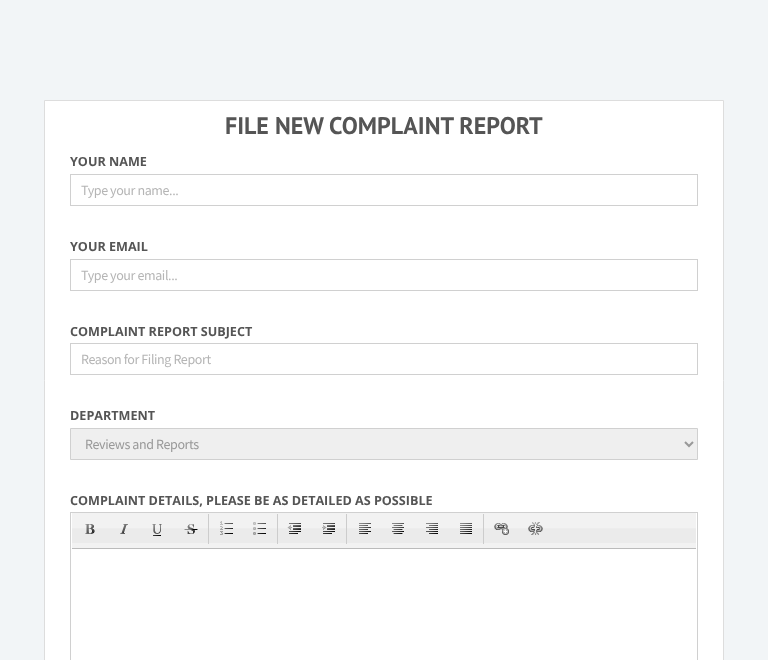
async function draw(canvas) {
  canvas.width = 768
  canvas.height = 660
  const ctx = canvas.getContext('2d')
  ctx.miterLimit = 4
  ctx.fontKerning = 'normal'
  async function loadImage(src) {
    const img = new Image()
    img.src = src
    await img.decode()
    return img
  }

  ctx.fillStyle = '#f2f5f7'
  ctx.fillRect(0, 0, 768, 660)
  ctx.fillStyle = '#fff'
  ctx.beginPath()
  ctx.rect(44.5, 100.5, 679, 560)
  ctx.fill()
  ctx.strokeStyle = '#ddd'
  ctx.stroke()
  ctx.font = 'bold 24px PT Sans'
  ctx.fillStyle = '#555'
  ctx.fillText('FILE NEW COMPLAINT REPORT', 225, 134)
  ctx.font = 'bold 12.6px Open Sans'
  ctx.fillText('YOUR NAME', 70, 166)
  ctx.strokeStyle = '#d0d0d0'
  ctx.strokeRect(70.5, 174.5, 627, 31)
  ctx.letterSpacing = '-0.4px'
  ctx.font = '14px Source Sans Pro'
  ctx.fillStyle = '#b5b5b5'
  ctx.fillText('Type your name...', 81, 195)
  ctx.letterSpacing = '0px'
  ctx.font = 'bold 12.6px Open Sans'
  ctx.fillStyle = '#555'
  ctx.fillText('YOUR EMAIL', 70, 251)
  ctx.strokeRect(70.5, 259.5, 627, 31)
  ctx.letterSpacing = '-0.4px'
  ctx.font = '14px Source Sans Pro'
  ctx.fillStyle = '#b5b5b5'
  ctx.fillText('Type your email...', 81, 280)
  ctx.letterSpacing = '0px'
  ctx.font = 'bold 12.6px Open Sans'
  ctx.fillStyle = '#555'
  ctx.fillText('COMPLAINT REPORT SUBJECT', 70, 336)
  ctx.strokeRect(70.5, 343.5, 627, 31)
  ctx.letterSpacing = '-0.4px'
  ctx.font = '14px Source Sans Pro'
  ctx.fillStyle = '#b5b5b5'
  ctx.fillText('Reason for Filing Report', 81, 364)
  ctx.letterSpacing = '0px'
  ctx.font = 'bold 12.6px Open Sans'
  ctx.fillStyle = '#555'
  ctx.fillText('DEPARTMENT', 70, 420)
  ctx.fillStyle = '#efefef'
  ctx.beginPath()
  ctx.rect(70.5, 428.5, 627, 31)
  ctx.fill()
  ctx.stroke()
  ctx.beginPath()
  ctx.moveTo(685, 442)
  ctx.lineTo(689, 446)
  ctx.lineTo(693, 442)
  ctx.strokeStyle = '#999'
  ctx.lineWidth = 2
  ctx.stroke()
  ctx.letterSpacing = '-0.4px'
  ctx.font = '14px Source Sans Pro'
  ctx.fillStyle = '#999'
  ctx.fillText('Reviews and Reports', 85, 449)
  ctx.letterSpacing = '0px'
  ctx.font = 'bold 12.6px Open Sans'
  ctx.fillStyle = '#555'
  ctx.fillText('COMPLAINT DETAILS, PLEASE BE AS DETAILED AS POSSIBLE', 70, 505)
  ctx.strokeStyle = '#d0d0d0'
  ctx.lineWidth = 1
  ctx.strokeRect(70.5, 512.5, 627, 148)
  ctx.drawImage(await loadImage('image0.png'), 72, 513, 624, 35)
  ctx.fillStyle = '#bbb'
  ctx.fillRect(72, 548, 624, 1)
  ctx.drawImage(await loadImage('image1.png'), 85, 524, 10, 10)
  ctx.drawImage(await loadImage('image2.png'), 120, 524, 8, 10)
  ctx.drawImage(await loadImage('image3.png'), 152, 524, 10, 12)
  ctx.drawImage(await loadImage('image4.png'), 184, 524, 14, 10)
  ctx.fillStyle = '#ccc'
  ctx.fillRect(208, 514, 1, 30)
  ctx.drawImage(await loadImage('image5.png'), 220, 521, 13, 14)
  ctx.drawImage(await loadImage('image6.png'), 253, 522, 13, 13)
  ctx.fillRect(277, 514, 1, 30)
  ctx.drawImage(await loadImage('image7.png'), 287, 523, 14, 11)
  ctx.drawImage(await loadImage('image8.png'), 322, 523, 13, 11)
  ctx.fillRect(346, 514, 1, 30)
  ctx.drawImage(await loadImage('image9.png'), 359, 523, 12, 11)
  ctx.drawImage(await loadImage('image10.png'), 392, 523, 12, 11)
  ctx.drawImage(await loadImage('image11.png'), 426, 523, 12, 11)
  ctx.drawImage(await loadImage('image12.png'), 460, 523, 12, 11)
  ctx.fillRect(483, 514, 1, 30)
  ctx.drawImage(await loadImage('image13.png'), 494, 523, 15, 12)
  ctx.drawImage(await loadImage('image14.png'), 528, 522, 15, 13)
}

draw(document.querySelector('canvas'))
